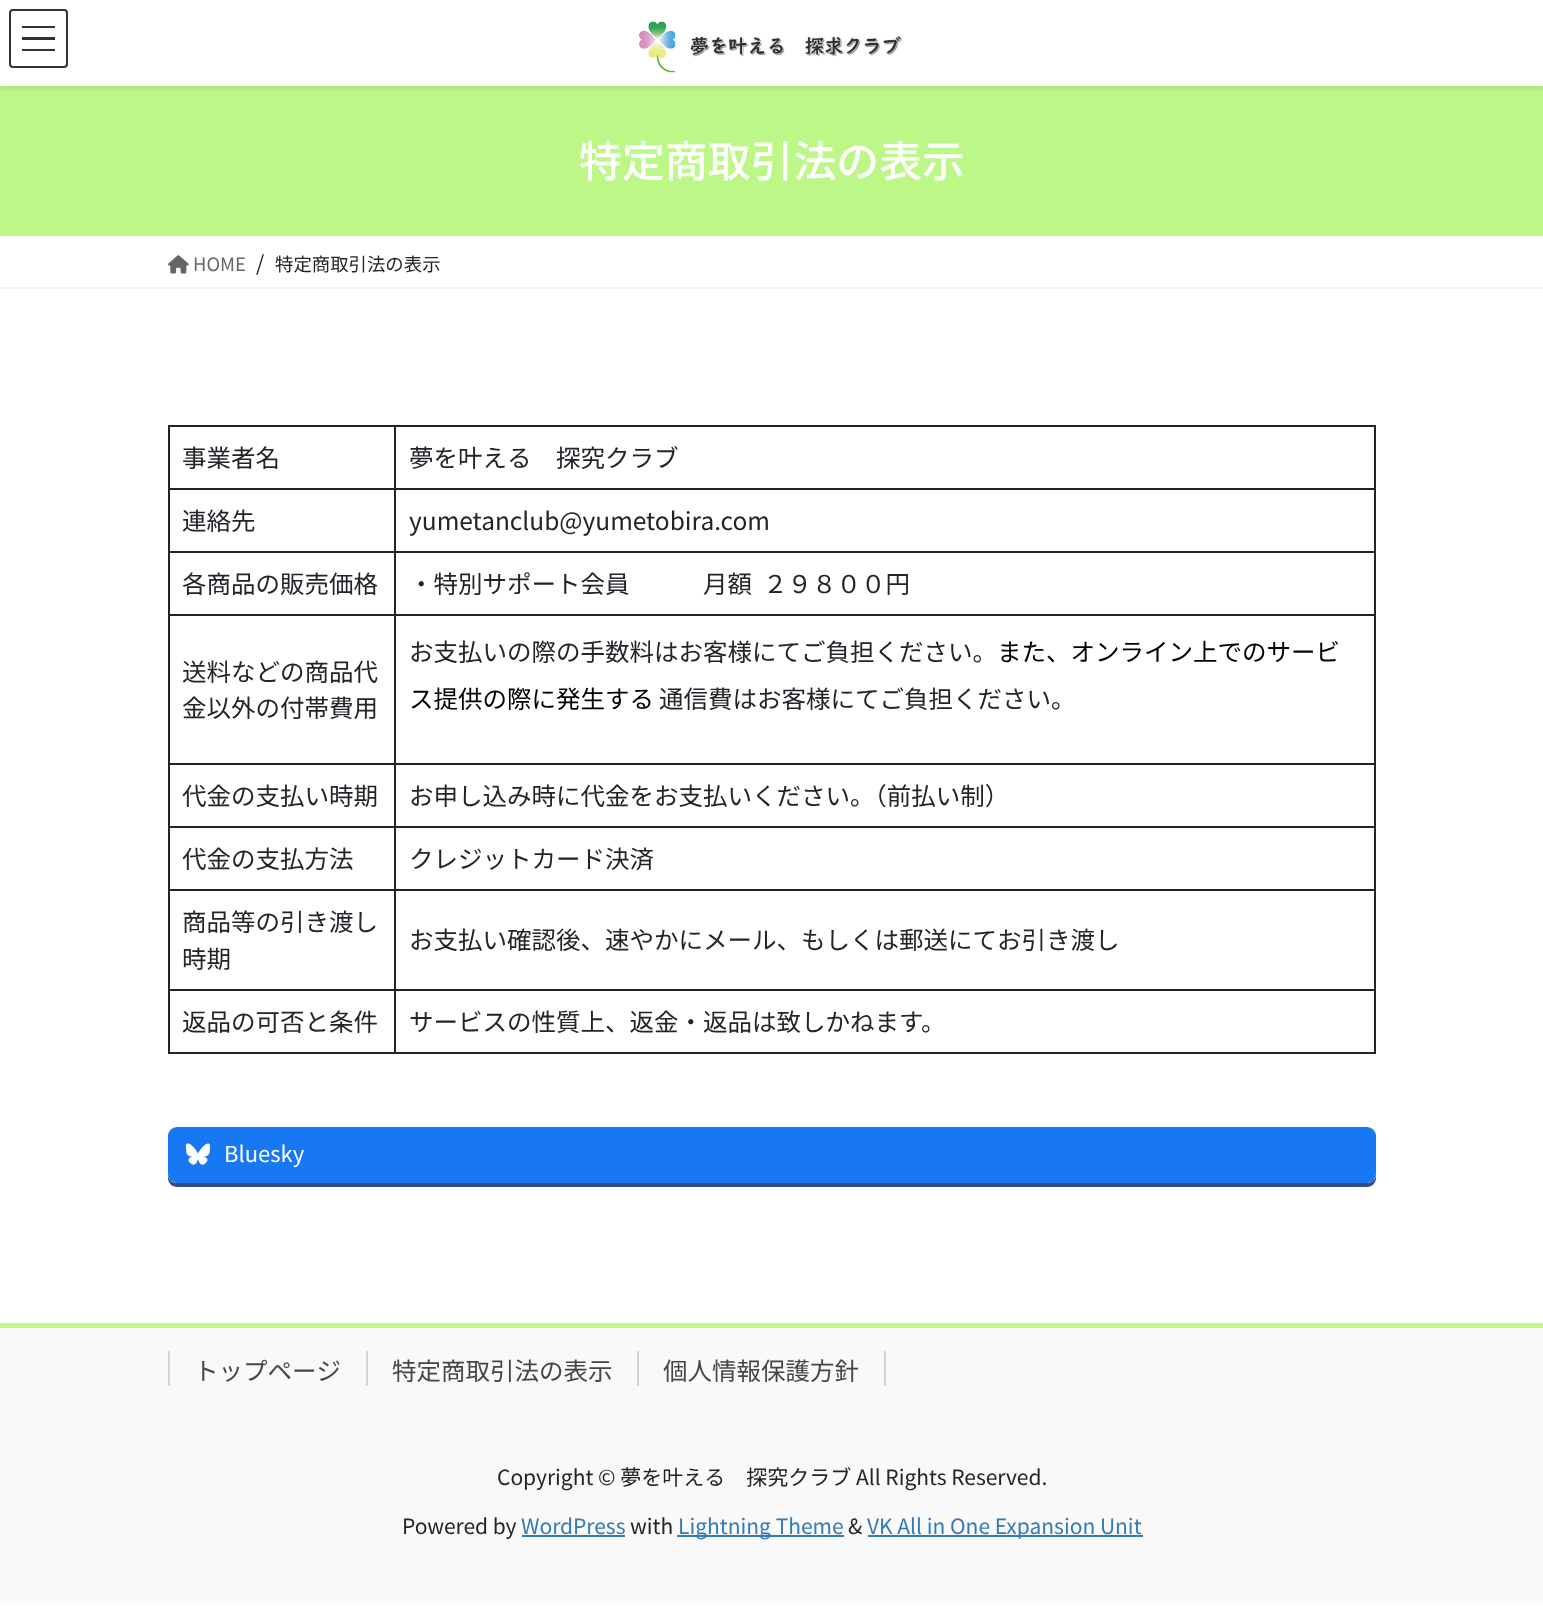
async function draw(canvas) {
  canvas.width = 1543
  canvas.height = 1610
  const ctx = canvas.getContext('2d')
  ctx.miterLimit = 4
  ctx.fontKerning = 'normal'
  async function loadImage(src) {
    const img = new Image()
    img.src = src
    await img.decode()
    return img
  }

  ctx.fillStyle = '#fff'
  ctx.fillRect(0, 0, 1543, 1610)
  ctx.fillStyle = '#bdf788'
  ctx.fillRect(0, 86, 1543, 150)
  ctx.fillStyle = '#0000001a'
  ctx.filter = 'blur(2.5px)'
  ctx.beginPath()
  ctx.rect(0, 2, 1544, 86)
  ctx.fill()
  ctx.filter = 'none'
  ctx.fillStyle = '#fff'
  ctx.fillRect(0, 0, 1543, 86)
  ctx.drawImage(await loadImage('image0.png'), 638, 21, 265, 52)
  ctx.fillStyle = '#333'
  ctx.fillRect(22, 26, 33, 2)
  ctx.fillRect(22, 37, 33, 3)
  ctx.fillRect(22, 49, 33, 2)
  ctx.beginPath()
  ctx.roundRect(10, 10, 57, 57, 3)
  ctx.strokeStyle = '#333'
  ctx.lineWidth = 2
  ctx.stroke()
  ctx.font = '500 42.9px Noto Sans JP'
  ctx.fillStyle = '#fff'
  ctx.fillText('特定商取引法の表示', 579, 177)
  ctx.fillStyle = '#f2f2f2'
  ctx.fillRect(0, 287, 1543, 2)
  ctx.drawImage(await loadImage('image1.png'), 168, 255, 21, 19)
  ctx.font = '18.4px Noto Sans JP'
  ctx.fillStyle = '#666'
  ctx.fillText('HOME', 193, 271)
  ctx.font = '21px Noto Sans JP'
  ctx.fillStyle = '#212529'
  ctx.fillText('/', 256, 271)
  ctx.font = '18.4px Noto Sans JP'
  ctx.fillText('特定商取引法の表示', 275, 271)
  ctx.fillRect(394, 425, 982, 2)
  ctx.fillRect(394, 488, 982, 2)
  ctx.fillRect(394, 551, 982, 2)
  ctx.fillRect(394, 614, 982, 2)
  ctx.fillRect(394, 763, 982, 2)
  ctx.fillRect(394, 826, 982, 2)
  ctx.fillRect(394, 889, 982, 2)
  ctx.fillRect(394, 989, 982, 2)
  ctx.fillRect(1374, 989, 2, 65)
  ctx.fillRect(394, 1052, 982, 2)
  ctx.fillRect(394, 989, 2, 65)
  ctx.fillRect(168, 989, 228, 2)
  ctx.fillRect(394, 889, 2, 102)
  ctx.fillRect(168, 889, 228, 2)
  ctx.fillRect(394, 826, 2, 65)
  ctx.fillRect(168, 826, 228, 2)
  ctx.fillRect(394, 763, 2, 65)
  ctx.fillRect(168, 763, 228, 2)
  ctx.fillRect(394, 614, 2, 151)
  ctx.fillRect(168, 614, 228, 2)
  ctx.fillRect(394, 551, 2, 65)
  ctx.fillRect(168, 551, 228, 2)
  ctx.fillRect(394, 488, 2, 65)
  ctx.fillRect(168, 488, 228, 2)
  ctx.fillRect(394, 425, 2, 65)
  ctx.fillRect(168, 425, 228, 2)
  ctx.fillRect(168, 1052, 228, 2)
  ctx.fillRect(168, 989, 2, 65)
  ctx.fillRect(168, 889, 2, 102)
  ctx.fillRect(168, 826, 2, 65)
  ctx.fillRect(168, 763, 2, 65)
  ctx.fillRect(168, 614, 2, 151)
  ctx.fillRect(168, 551, 2, 65)
  ctx.fillRect(168, 488, 2, 65)
  ctx.fillRect(168, 425, 2, 65)
  ctx.font = '24.5px Noto Sans JP'
  ctx.fillText('事業者名', 182, 467)
  ctx.fillRect(1374, 889, 2, 102)
  ctx.fillRect(1374, 826, 2, 65)
  ctx.fillRect(1374, 763, 2, 65)
  ctx.fillRect(1374, 614, 2, 151)
  ctx.fillRect(1374, 551, 2, 65)
  ctx.fillRect(1374, 488, 2, 65)
  ctx.fillRect(1374, 425, 2, 65)
  ctx.fillText('夢を叶える　探究クラブ', 409, 467)
  ctx.fillText('連絡先', 182, 530)
  ctx.fillText('yumetanclub@yumetobira.com', 409, 530)
  ctx.fillText('各商品の販売価格', 182, 593)
  ctx.fillText('・特別サポート会員　　　月額  ２９８００円', 409, 593)
  ctx.fillText('送料などの商品代', 182, 681)
  ctx.fillText('金以外の付帯費用', 182, 717)
  ctx.fillText('お支払いの際の手数料はお客様にてご負担ください。', 409, 661)
  ctx.fillStyle = '#000'
  ctx.fillText('また、オンライン上でのサービ', 997, 661)
  ctx.fillText('ス提供の際に発生する', 409, 708)
  ctx.fillStyle = '#212529'
  ctx.fillText('通信費はお客様にてご負担ください。', 659, 708)
  ctx.fillText('代金の支払い時期', 182, 805)
  ctx.fillText('お申し込み時に代金をお支払いください。（前払い制）', 409, 805)
  ctx.fillText('代金の支払方法', 182, 868)
  ctx.fillText('クレジットカード決済', 409, 868)
  ctx.fillText('商品等の引き渡し', 182, 931)
  ctx.fillText('時期', 182, 968)
  ctx.fillText('お支払い確認後、速やかにメール、もしくは郵送にてお引き渡し', 409, 949)
  ctx.fillText('返品の可否と条件', 182, 1031)
  ctx.fillText('サービスの性質上、返金・返品は致しかねます。', 409, 1031)
  ctx.fillStyle = '#344e84'
  ctx.beginPath()
  ctx.moveTo(168, 1174)
  ctx.lineTo(168, 1178)
  ctx.bezierCurveTo(168, 1183, 172, 1187, 177, 1187)
  ctx.lineTo(1367, 1187)
  ctx.bezierCurveTo(1372, 1187, 1376, 1183, 1376, 1178)
  ctx.lineTo(1376, 1140)
  ctx.lineTo(1376, 1137)
  ctx.lineTo(1376, 1174)
  ctx.bezierCurveTo(1376, 1179, 1372, 1183, 1367, 1183)
  ctx.lineTo(177, 1183)
  ctx.bezierCurveTo(172, 1183, 168, 1179, 168, 1174)
  ctx.closePath()
  ctx.fill()
  ctx.fillStyle = '#1877f2'
  ctx.beginPath()
  ctx.roundRect(168, 1127, 1208, 56, 9)
  ctx.fill()
  ctx.drawImage(await loadImage('image2.png'), 185, 1143, 25, 22)
  ctx.font = '22px Noto Sans JP'
  ctx.fillStyle = '#fff'
  ctx.fillText('Bluesky', 224, 1162)
  ctx.fillStyle = '#f9f9f9'
  ctx.fillRect(0, 1328, 1543, 275)
  ctx.fillStyle = '#bdf788'
  ctx.fillRect(0, 1323, 1543, 5)
  ctx.font = '24.5px Noto Sans JP'
  ctx.fillStyle = '#464646'
  ctx.fillText('トップページ', 194, 1380)
  ctx.fillStyle = '#d4d4d4'
  ctx.fillRect(168, 1351, 2, 35)
  ctx.fillStyle = '#464646'
  ctx.fillText('特定商取引法の表示', 392, 1380)
  ctx.fillStyle = '#d4d4d4'
  ctx.fillRect(366, 1351, 2, 35)
  ctx.fillStyle = '#464646'
  ctx.fillText('個人情報保護方針', 663, 1380)
  ctx.fillStyle = '#d4d4d4'
  ctx.fillRect(884, 1351, 2, 35)
  ctx.fillRect(637, 1351, 2, 35)
  ctx.font = '21px Noto Sans JP'
  ctx.fillStyle = '#212529'
  ctx.fillText('Copyright © 夢を叶える　探究クラブ All Rights Reserved.', 497, 1485)
  ctx.fillText('Powered by', 402, 1534)
  ctx.fillStyle = '#337ab7'
  ctx.fillText('WordPress', 521, 1534)
  ctx.fillRect(522, 1535, 103, 2)
  ctx.fillStyle = '#212529'
  ctx.fillText('with', 630, 1534)
  ctx.fillStyle = '#337ab7'
  ctx.fillRect(677, 1535, 167, 2)
  ctx.fillText('Lightning Theme', 678, 1534)
  ctx.fillStyle = '#212529'
  ctx.fillText('&', 848, 1534)
  ctx.fillStyle = '#337ab7'
  ctx.fillRect(868, 1535, 275, 2)
  ctx.fillText('VK All in One Expansion Unit', 867, 1534)
}

draw(document.querySelector('canvas'))
